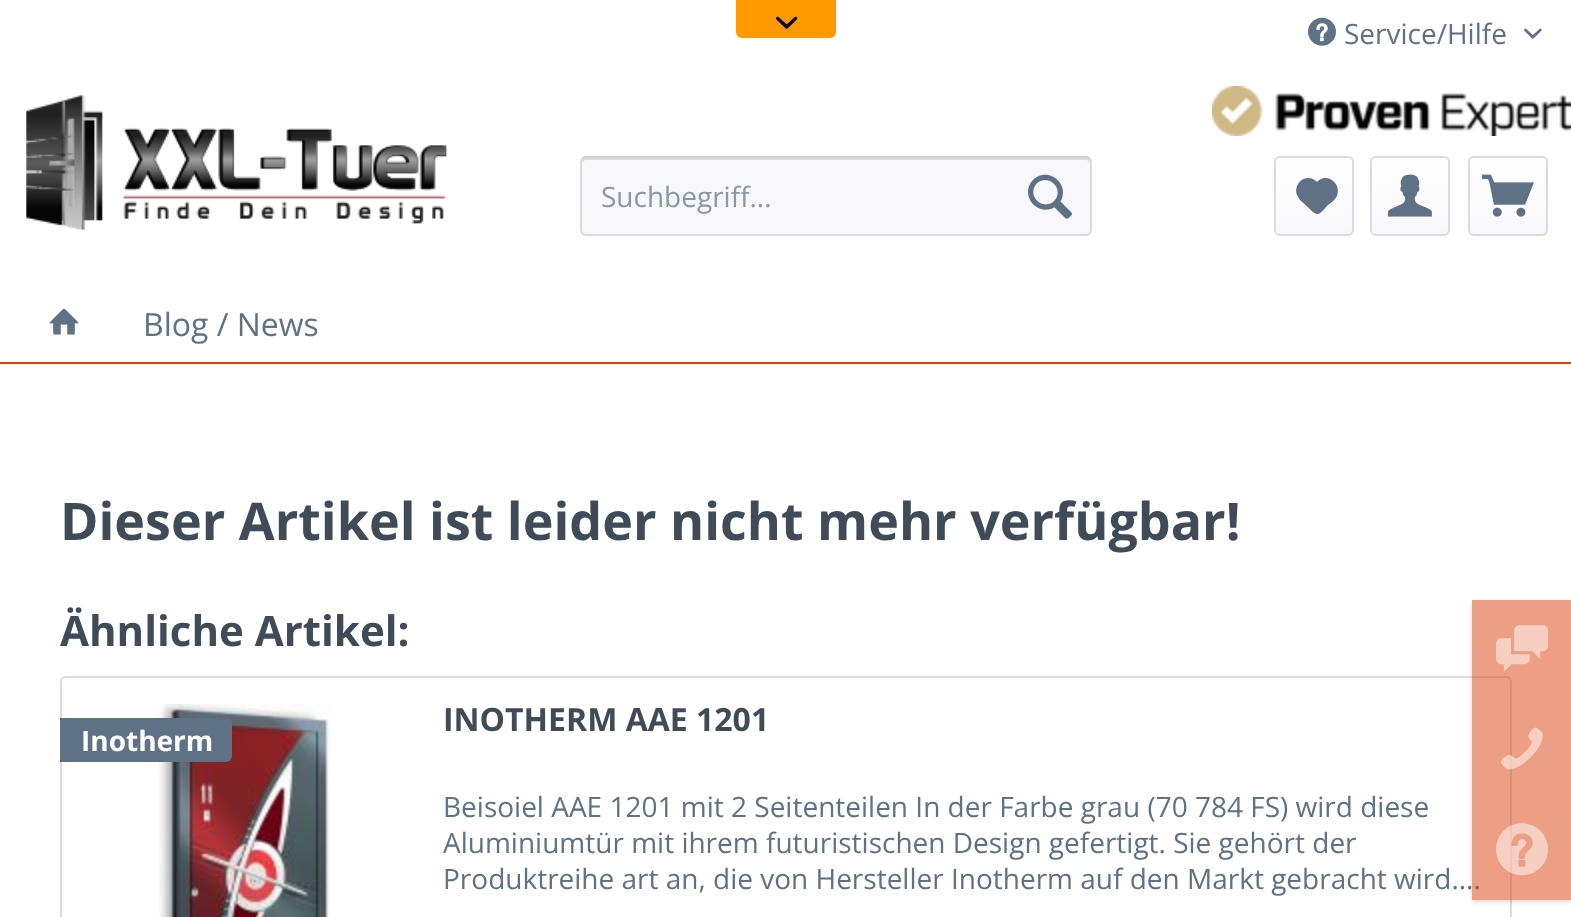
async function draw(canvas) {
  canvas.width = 1571
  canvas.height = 917
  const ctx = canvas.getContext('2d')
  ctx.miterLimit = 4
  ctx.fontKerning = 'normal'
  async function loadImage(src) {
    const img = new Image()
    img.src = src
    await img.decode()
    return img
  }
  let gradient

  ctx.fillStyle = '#fff'
  ctx.fillRect(0, 0, 1571, 917)
  ctx.fillStyle = '#f90'
  ctx.beginPath()
  ctx.roundRect(736, 0, 100, 38, [0, 0, 6, 6])
  ctx.fill()
  ctx.drawImage(await loadImage('image0.png'), 776, 16, 22, 13)
  ctx.drawImage(await loadImage('image1.png'), 1308, 17, 28, 29)
  ctx.font = '28px Open Sans'
  ctx.fillStyle = '#5f7285'
  ctx.fillText('Service/Hilfe', 1344, 44)
  ctx.drawImage(await loadImage('image2.png'), 1524, 28, 18, 11)
  ctx.drawImage(await loadImage('image3.png'), 26, 95, 421, 135)
  ctx.fillStyle = '#f8f8fa'
  ctx.beginPath()
  ctx.roundRect(580, 156, 512, 80, 6)
  ctx.fill()
  ctx.fillStyle = '#dadae5'
  ctx.beginPath()
  ctx.moveTo(586, 160)
  ctx.lineTo(1086, 160)
  ctx.bezierCurveTo(1088, 160, 1090, 162, 1090, 164)
  ctx.bezierCurveTo(1090, 161, 1090, 158, 1086, 158)
  ctx.lineTo(586, 158)
  ctx.bezierCurveTo(582, 158, 582, 161, 582, 164)
  ctx.bezierCurveTo(582, 162, 584, 160, 586, 160)
  ctx.closePath()
  ctx.fill()
  ctx.beginPath()
  ctx.moveTo(582.5, 158.5)
  ctx.bezierCurveTo(583.5, 157.5, 584.5, 157, 586, 157)
  ctx.lineTo(1086, 157)
  ctx.bezierCurveTo(1087.5, 157, 1088.5, 157.5, 1089.5, 158.5)
  ctx.strokeStyle = '#cbcbdb'
  ctx.lineWidth = 2
  ctx.stroke()
  ctx.beginPath()
  ctx.moveTo(1089.5, 158.5)
  ctx.bezierCurveTo(1090.5, 159.5, 1091, 160.5, 1091, 162)
  ctx.lineTo(1091, 230)
  ctx.bezierCurveTo(1091, 231.5, 1090.5, 232.5, 1089.5, 233.5)
  ctx.bezierCurveTo(1088.5, 234.5, 1087.5, 235, 1086, 235)
  ctx.lineTo(586, 235)
  ctx.bezierCurveTo(584.5, 235, 583.5, 234.5, 582.5, 233.5)
  ctx.bezierCurveTo(581.5, 232.5, 581, 231.5, 581, 230)
  ctx.lineTo(581, 162)
  ctx.bezierCurveTo(581, 160.5, 581.5, 159.5, 582.5, 158.5)
  ctx.strokeStyle = '#dadae5'
  ctx.stroke()
  ctx.fillStyle = '#8798a9'
  ctx.fillText('Suchbegriff...', 601, 207)
  ctx.drawImage(await loadImage('image4.png'), 1028, 174, 44, 45)
  gradient = ctx.createLinearGradient(1314, 158, 1314, 234)
  gradient.addColorStop(0, '#fff')
  gradient.addColorStop(1, '#f8f8fa')
  ctx.fillStyle = gradient
  ctx.beginPath()
  ctx.roundRect(1276, 158, 76, 76, 4)
  ctx.fill()
  ctx.beginPath()
  ctx.roundRect(1275, 157, 78, 78, 5)
  ctx.stroke()
  ctx.fillStyle = '#5f7285'
  ctx.beginPath()
  ctx.moveTo(1308, 178)
  ctx.bezierCurveTo(1300, 178, 1294, 187, 1297, 195)
  ctx.lineTo(1300, 200)
  ctx.lineTo(1312, 211)
  ctx.bezierCurveTo(1319, 218, 1322, 211, 1328, 205)
  ctx.bezierCurveTo(1331, 203, 1335, 200, 1337, 196)
  ctx.bezierCurveTo(1342, 183, 1326, 172, 1317, 182)
  ctx.bezierCurveTo(1315, 180, 1312, 178, 1308, 178)
  ctx.closePath()
  ctx.fill()
  gradient = ctx.createLinearGradient(1410, 158, 1410, 234)
  gradient.addColorStop(0, '#fff')
  gradient.addColorStop(1, '#f8f8fa')
  ctx.fillStyle = gradient
  ctx.beginPath()
  ctx.roundRect(1372, 158, 76, 76, 4)
  ctx.fill()
  ctx.beginPath()
  ctx.roundRect(1371, 157, 78, 78, 5)
  ctx.stroke()
  ctx.drawImage(await loadImage('image5.png'), 1388, 174, 44, 43)
  gradient = ctx.createLinearGradient(1508, 158, 1508, 234)
  gradient.addColorStop(0, '#fff')
  gradient.addColorStop(1, '#f8f8fa')
  ctx.fillStyle = gradient
  ctx.beginPath()
  ctx.roundRect(1470, 158, 76, 76, 4)
  ctx.fill()
  ctx.beginPath()
  ctx.roundRect(1469, 157, 78, 78, 5)
  ctx.stroke()
  ctx.drawImage(await loadImage('image6.png'), 1482, 174, 52, 43)
  ctx.drawImage(await loadImage('image7.png'), 1212, 86, 359, 50)
  ctx.fillStyle = '#d9400b'
  ctx.fillRect(0, 362, 1571, 2)
  ctx.drawImage(await loadImage('image8.png'), 49, 308, 30, 27)
  ctx.font = '32px Open Sans'
  ctx.fillStyle = '#5f7285'
  ctx.fillText('Blog / News', 143, 336)
  ctx.font = 'bold 52px Open Sans'
  ctx.fillStyle = '#3f4c58'
  ctx.fillText('Dieser Artikel ist leider nicht mehr verfügbar!', 60, 540)
  ctx.font = 'bold 42px Open Sans'
  ctx.fillText('Ähnliche Artikel:', 60, 646)
  ctx.beginPath()
  ctx.roundRect(61, 677, 1450, 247, 5)
  ctx.stroke()
  ctx.drawImage(await loadImage('image9.png'), 158, 704, 175, 213)
  ctx.fillStyle = '#5f7285'
  ctx.beginPath()
  ctx.roundRect(60, 718, 172, 44, [0, 6, 6, 0])
  ctx.fill()
  ctx.font = 'bold 28px Open Sans'
  ctx.fillStyle = '#fff'
  ctx.fillText('Inotherm', 81, 751)
  ctx.font = 'bold 32px Open Sans'
  ctx.fillStyle = '#3f4c58'
  ctx.fillText('INOTHERM AAE 1201', 443, 731)
  ctx.font = '28px Open Sans'
  ctx.fillStyle = '#5f7285'
  ctx.fillText('Beisoiel AAE 1201 mit 2 Seitenteilen In der Farbe grau (70 784 FS) wird diese', 443, 817)
  ctx.fillText('Aluminiumtür mit ihrem futuristischen Design gefertigt. Sie gehört der', 443, 853)
  ctx.fillText('Produktreihe art an, die von Hersteller Inotherm auf den Markt gebracht wird....', 443, 889)
  ctx.save()
  ctx.beginPath()
  ctx.moveTo(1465, 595)
  ctx.lineTo(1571, 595)
  ctx.lineTo(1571, 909)
  ctx.lineTo(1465, 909)
  ctx.closePath()
  ctx.moveTo(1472, 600)
  ctx.lineTo(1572, 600)
  ctx.lineTo(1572, 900)
  ctx.lineTo(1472, 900)
  ctx.closePath()
  ctx.clip('evenodd')
  ctx.fillStyle = '#00000026'
  ctx.filter = 'blur(2px)'
  ctx.beginPath()
  ctx.rect(1472, 602, 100, 300)
  ctx.fill()
  ctx.filter = 'none'
  ctx.restore()
  ctx.fillStyle = '#d9400b80'
  ctx.fillRect(1472, 600, 99, 300)
  ctx.drawImage(await loadImage('image10.png'), 1496, 625, 52, 47)
  ctx.drawImage(await loadImage('image11.png'), 1501, 727, 42, 43)
  ctx.drawImage(await loadImage('image12.png'), 1496, 823, 52, 53)
}

draw(document.querySelector('canvas'))
